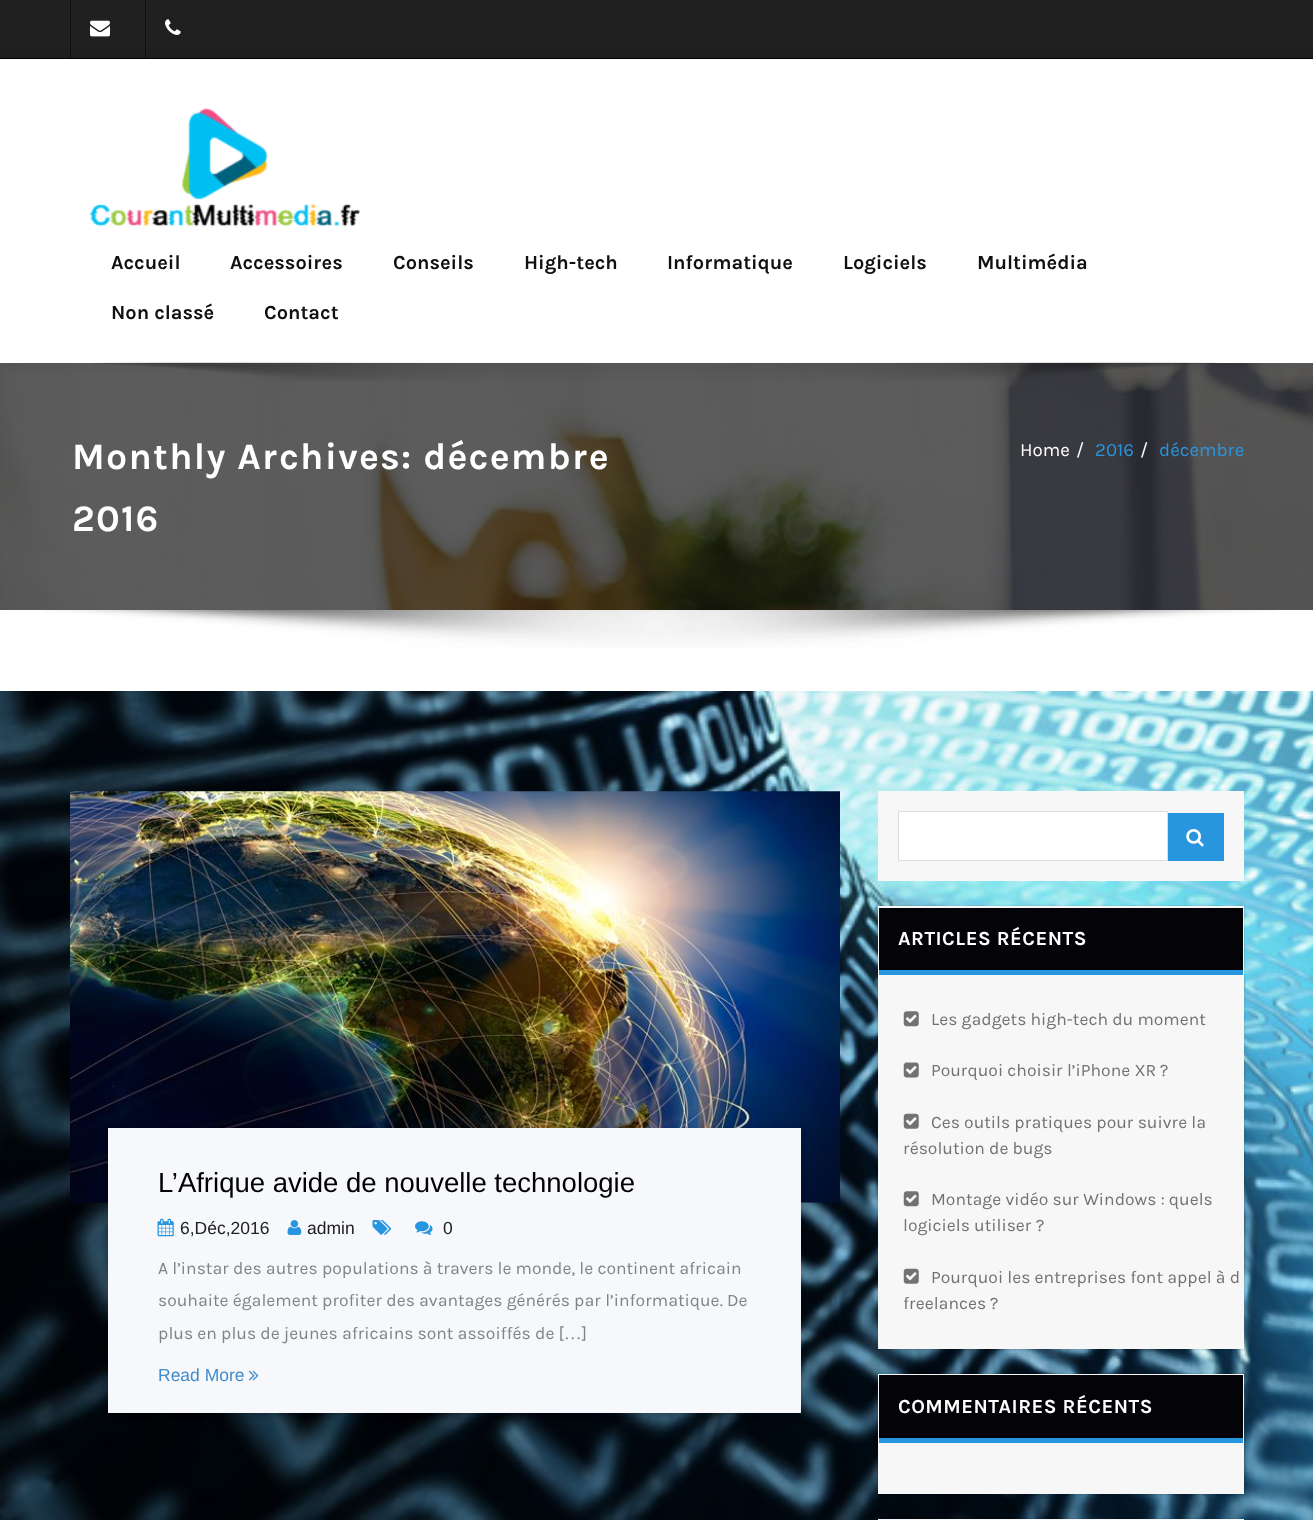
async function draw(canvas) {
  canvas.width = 1313
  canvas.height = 1520
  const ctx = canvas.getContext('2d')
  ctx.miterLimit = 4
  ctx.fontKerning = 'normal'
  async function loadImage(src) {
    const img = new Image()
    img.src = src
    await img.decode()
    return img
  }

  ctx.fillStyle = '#fff'
  ctx.fillRect(0, 0, 1313, 1520)
  ctx.drawImage(await loadImage('image0.png'), 0, 691, 1313, 829)
  ctx.fillStyle = '#202020'
  ctx.fillRect(0, 0, 1313, 58)
  ctx.fillStyle = '#000'
  ctx.fillRect(0, 58, 1313, 1)
  ctx.fillStyle = '#101010'
  ctx.fillRect(70, 0, 1, 58)
  ctx.drawImage(await loadImage('image1.png'), 90, 20, 20, 17)
  ctx.fillRect(145, 0, 1, 58)
  ctx.drawImage(await loadImage('image2.png'), 165, 19, 16, 16)
  ctx.drawImage(await loadImage('image5.png'), 0, 363, 1313, 247)
  ctx.fillStyle = '#0000001a'
  ctx.filter = 'blur(6px)'
  ctx.beginPath()
  ctx.rect(1, 59, 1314, 304)
  ctx.fill()
  ctx.filter = 'none'
  ctx.fillStyle = '#fff'
  ctx.fillRect(0, 59, 1313, 304)
  ctx.drawImage(await loadImage('image3.png'), 89, 108, 272, 119)
  ctx.font = 'bold 20px Karla'
  ctx.fillStyle = '#101010'
  ctx.fillText('Accueil', 111, 269)
  ctx.fillText('Accessoires', 230, 269)
  ctx.fillText('Conseils', 393, 269)
  ctx.fillText('High-tech', 524, 269)
  ctx.fillText('Informatique', 667, 269)
  ctx.fillText('Logiciels', 843, 269)
  ctx.fillText('Multimédia', 977, 269)
  ctx.fillText('Non classé', 111, 319)
  ctx.fillText('Contact', 264, 319)
  ctx.drawImage(await loadImage('image4.png'), 93, 362, 1126, 19)
  ctx.letterSpacing = '1.25px'
  ctx.font = 'bold 37.5px Karla'
  ctx.fillStyle = '#fff'
  ctx.fillText('Monthly Archives: décembre', 72, 469)
  ctx.fillText('2016', 72, 531)
  ctx.letterSpacing = '0px'
  ctx.font = '18.75px Karla'
  ctx.fillText('Home', 1020, 456)
  ctx.fillText('/', 1076, 456)
  ctx.fillStyle = '#2896df'
  ctx.fillText('2016', 1095, 456)
  ctx.fillStyle = '#fff'
  ctx.fillText('/', 1140, 456)
  ctx.fillStyle = '#2896df'
  ctx.fillText('décembre', 1159, 456)
  ctx.drawImage(await loadImage('image6.png'), 44, 610, 1232, 38)
  ctx.drawImage(await loadImage('image7.png'), 70, 791, 770, 412)
  ctx.fillStyle = '#0000001a'
  ctx.filter = 'blur(2.5px)'
  ctx.beginPath()
  ctx.rect(108, 1130, 693, 285)
  ctx.fill()
  ctx.filter = 'none'
  ctx.filter = 'blur(2.5px)'
  ctx.beginPath()
  ctx.rect(108, 1130, 693, 285)
  ctx.fill()
  ctx.filter = 'none'
  ctx.fillStyle = '#f6f8fb'
  ctx.fillRect(108, 1128, 693, 285)
  ctx.font = '27.5px Liberation Sans'
  ctx.fillStyle = '#000'
  ctx.fillText('L’Afrique avide de nouvelle technologie', 158, 1192)
  ctx.drawImage(await loadImage('image8.png'), 157, 1218, 17, 19)
  ctx.font = '17.5px Liberation Sans'
  ctx.fillStyle = '#202020'
  ctx.fillText('6,Déc,2016', 180, 1234)
  ctx.drawImage(await loadImage('image9.png'), 287, 1220, 15, 15)
  ctx.fillText('admin', 307, 1234)
  ctx.drawImage(await loadImage('image10.png'), 372, 1220, 19, 15)
  ctx.drawImage(await loadImage('image11.png'), 415, 1221, 18, 14)
  ctx.fillText('0', 443, 1234)
  ctx.font = '17.5px Karla'
  ctx.fillStyle = '#818387'
  ctx.fillText('A l’instar des autres populations à travers le monde, le continent africain', 158, 1274)
  ctx.fillText('souhaite également profiter des avantages générés par l’informatique. De', 158, 1306)
  ctx.fillText('plus en plus de jeunes africains sont assoiffés de [', 158, 1339)
  ctx.font = '17.5px Liberation Serif'
  ctx.fillText('…', 564, 1339)
  ctx.font = '17.5px Karla'
  ctx.fillText(']', 582, 1339)
  ctx.font = '17.5px Liberation Sans'
  ctx.fillStyle = '#428bca'
  ctx.fillText('Read More', 158, 1381)
  ctx.drawImage(await loadImage('image12.png'), 248, 1370, 11, 11)
  ctx.fillStyle = '#f7f7f7'
  ctx.fillRect(878, 791, 366, 90)
  ctx.fillStyle = '#fff'
  ctx.beginPath()
  ctx.rect(898.5, 811.5, 269, 49)
  ctx.fill()
  ctx.strokeStyle = '#ddd'
  ctx.stroke()
  ctx.fillStyle = '#2896df'
  ctx.fillRect(1168, 813, 56, 48)
  ctx.drawImage(await loadImage('image13.png'), 1186, 829, 18, 18)
  ctx.fillStyle = '#00000033'
  ctx.filter = 'blur(1px)'
  ctx.beginPath()
  ctx.rect(878, 906, 366, 443)
  ctx.fill()
  ctx.filter = 'none'
  ctx.fillStyle = '#f7f7f7'
  ctx.fillRect(878, 906, 366, 443)
  ctx.fillStyle = '#040408'
  ctx.fillRect(879, 908, 364, 62)
  ctx.fillStyle = '#2896df'
  ctx.fillRect(879, 970, 364, 5)
  ctx.letterSpacing = '0.5px'
  ctx.font = 'bold 20px Karla'
  ctx.fillStyle = '#fff'
  ctx.fillText('ARTICLES RÉCENTS', 898, 945)
  ctx.drawImage(await loadImage('image14.png'), 903, 1011, 16, 16)
  ctx.letterSpacing = '0px'
  ctx.font = '17.5px Karla'
  ctx.fillStyle = '#727272'
  ctx.fillText('Les gadgets high-tech du moment', 931, 1025)
  ctx.drawImage(await loadImage('image15.png'), 903, 1062, 16, 16)
  ctx.fillText('Pourquoi choisir l’iPhone XR ?', 931, 1076)
  ctx.drawImage(await loadImage('image16.png'), 903, 1113, 16, 16)
  ctx.fillText('Ces outils pratiques pour suivre la', 931, 1128)
  ctx.fillText('résolution de bugs', 903, 1154)
  ctx.drawImage(await loadImage('image14.png'), 903, 1191, 16, 16)
  ctx.fillText('Montage vidéo sur Windows : quels', 931, 1205)
  ctx.fillText('logiciels utiliser ?', 903, 1231)
  ctx.drawImage(await loadImage('image16.png'), 903, 1268, 16, 16)
  ctx.fillText('Pourquoi les entreprises font appel à d', 931, 1283)
  ctx.fillText('freelances ?', 903, 1309)
  ctx.fillStyle = '#00000033'
  ctx.filter = 'blur(1px)'
  ctx.beginPath()
  ctx.rect(878, 1374, 366, 120)
  ctx.fill()
  ctx.filter = 'none'
  ctx.fillStyle = '#f7f7f7'
  ctx.fillRect(878, 1374, 366, 120)
  ctx.fillStyle = '#040408'
  ctx.fillRect(879, 1375, 364, 63)
  ctx.fillStyle = '#2896df'
  ctx.fillRect(879, 1438, 364, 5)
  ctx.letterSpacing = '0.5px'
  ctx.font = 'bold 20px Karla'
  ctx.fillStyle = '#fff'
  ctx.fillText('COMMENTAIRES RÉCENTS', 898, 1413)
  ctx.fillStyle = '#00000033'
  ctx.filter = 'blur(1px)'
  ctx.beginPath()
  ctx.rect(878, 1519, 366, 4)
  ctx.fill()
  ctx.filter = 'none'
  ctx.fillStyle = '#f7f7f7'
  ctx.fillRect(878, 1519, 366, 1)
}

draw(document.querySelector('canvas'))
